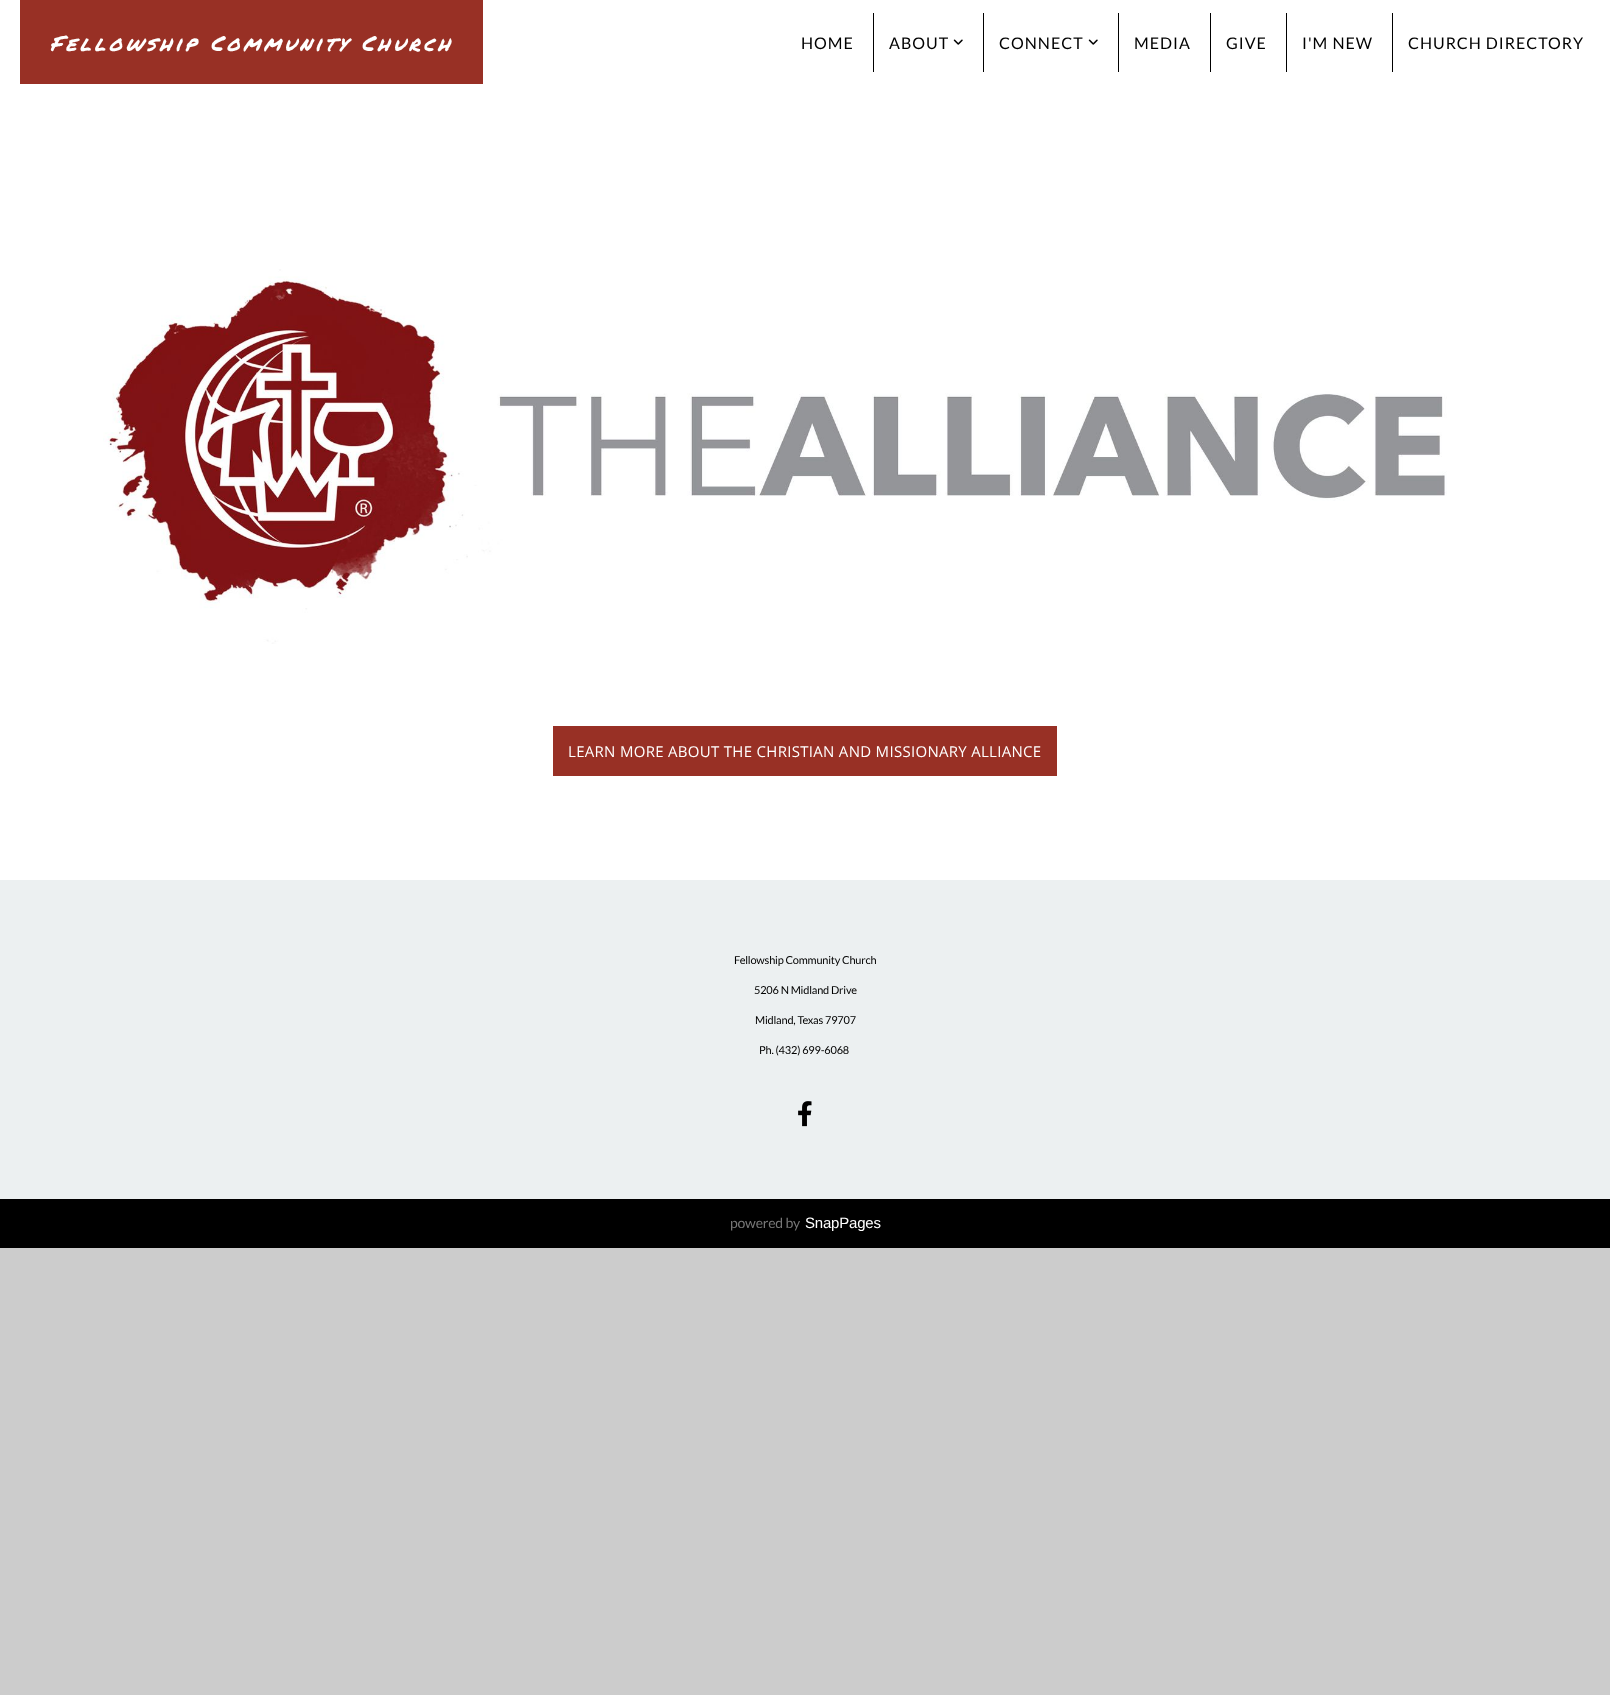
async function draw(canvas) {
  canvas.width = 1610
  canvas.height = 1695
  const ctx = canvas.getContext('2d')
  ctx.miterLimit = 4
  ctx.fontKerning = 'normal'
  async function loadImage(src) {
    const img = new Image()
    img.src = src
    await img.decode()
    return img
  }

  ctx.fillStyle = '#ccc'
  ctx.fillRect(0, 0, 1610, 1695)
  ctx.fillStyle = '#fff'
  ctx.fillRect(0, 0, 1610, 880)
  ctx.fillStyle = '#983025'
  ctx.fillRect(20, 0, 463, 84)
  ctx.letterSpacing = '3.35px'
  ctx.font = 'italic 21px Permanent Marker'
  ctx.fillStyle = '#fff'
  ctx.fillText('Fellowship Community Church', 50, 51)
  ctx.letterSpacing = '1px'
  ctx.font = '16px Lato'
  ctx.fillStyle = '#000'
  ctx.fillText('HOME', 801, 49)
  ctx.fillRect(873, 13, 1, 59)
  ctx.fillText('ABOUT', 889, 49)
  ctx.drawImage(await loadImage('image0.png'), 953, 39, 10, 6)
  ctx.fillRect(983, 13, 1, 59)
  ctx.fillText('CONNECT', 999, 49)
  ctx.drawImage(await loadImage('image0.png'), 1088, 39, 10, 6)
  ctx.fillRect(1118, 13, 1, 59)
  ctx.fillText('MEDIA', 1134, 49)
  ctx.fillRect(1210, 13, 1, 59)
  ctx.fillText('GIVE', 1226, 49)
  ctx.fillRect(1286, 13, 1, 59)
  ctx.fillText('I\'M NEW', 1302, 49)
  ctx.fillRect(1392, 13, 1, 59)
  ctx.fillText('CHURCH DIRECTORY', 1408, 49)
  ctx.drawImage(await loadImage('image1.png'), 103, 269, 1344, 375)
  ctx.fillStyle = '#983025'
  ctx.fillRect(553, 726, 504, 50)
  ctx.letterSpacing = '0.3px'
  ctx.font = '15px Open Sans'
  ctx.fillStyle = '#fff'
  ctx.fillText('LEARN MORE ABOUT THE CHRISTIAN AND MISSIONARY ALLIANCE', 568, 757)
  ctx.fillStyle = '#ecf0f1'
  ctx.fillRect(0, 880, 1610, 319)
  ctx.letterSpacing = '-0.2px'
  ctx.font = '11px Lato'
  ctx.fillStyle = '#000'
  ctx.fillText('Fellowship Community Church', 734, 964)
  ctx.fillText('5206 N Midland Drive', 754, 994)
  ctx.fillText('Midland, Texas 79707', 755, 1024)
  ctx.fillText('Ph. (432) 699-6068', 759, 1054)
  ctx.drawImage(await loadImage('image2.png'), 798, 1101, 14, 26)
  ctx.fillRect(0, 1199, 1610, 49)
  ctx.font = '14px Lato'
  ctx.fillStyle = '#777'
  ctx.fillText('powered by', 730, 1228)
  ctx.font = '15px Liberation Sans'
  ctx.fillStyle = '#fff'
  ctx.fillText('SnapPages', 805, 1228)
}

draw(document.querySelector('canvas'))
